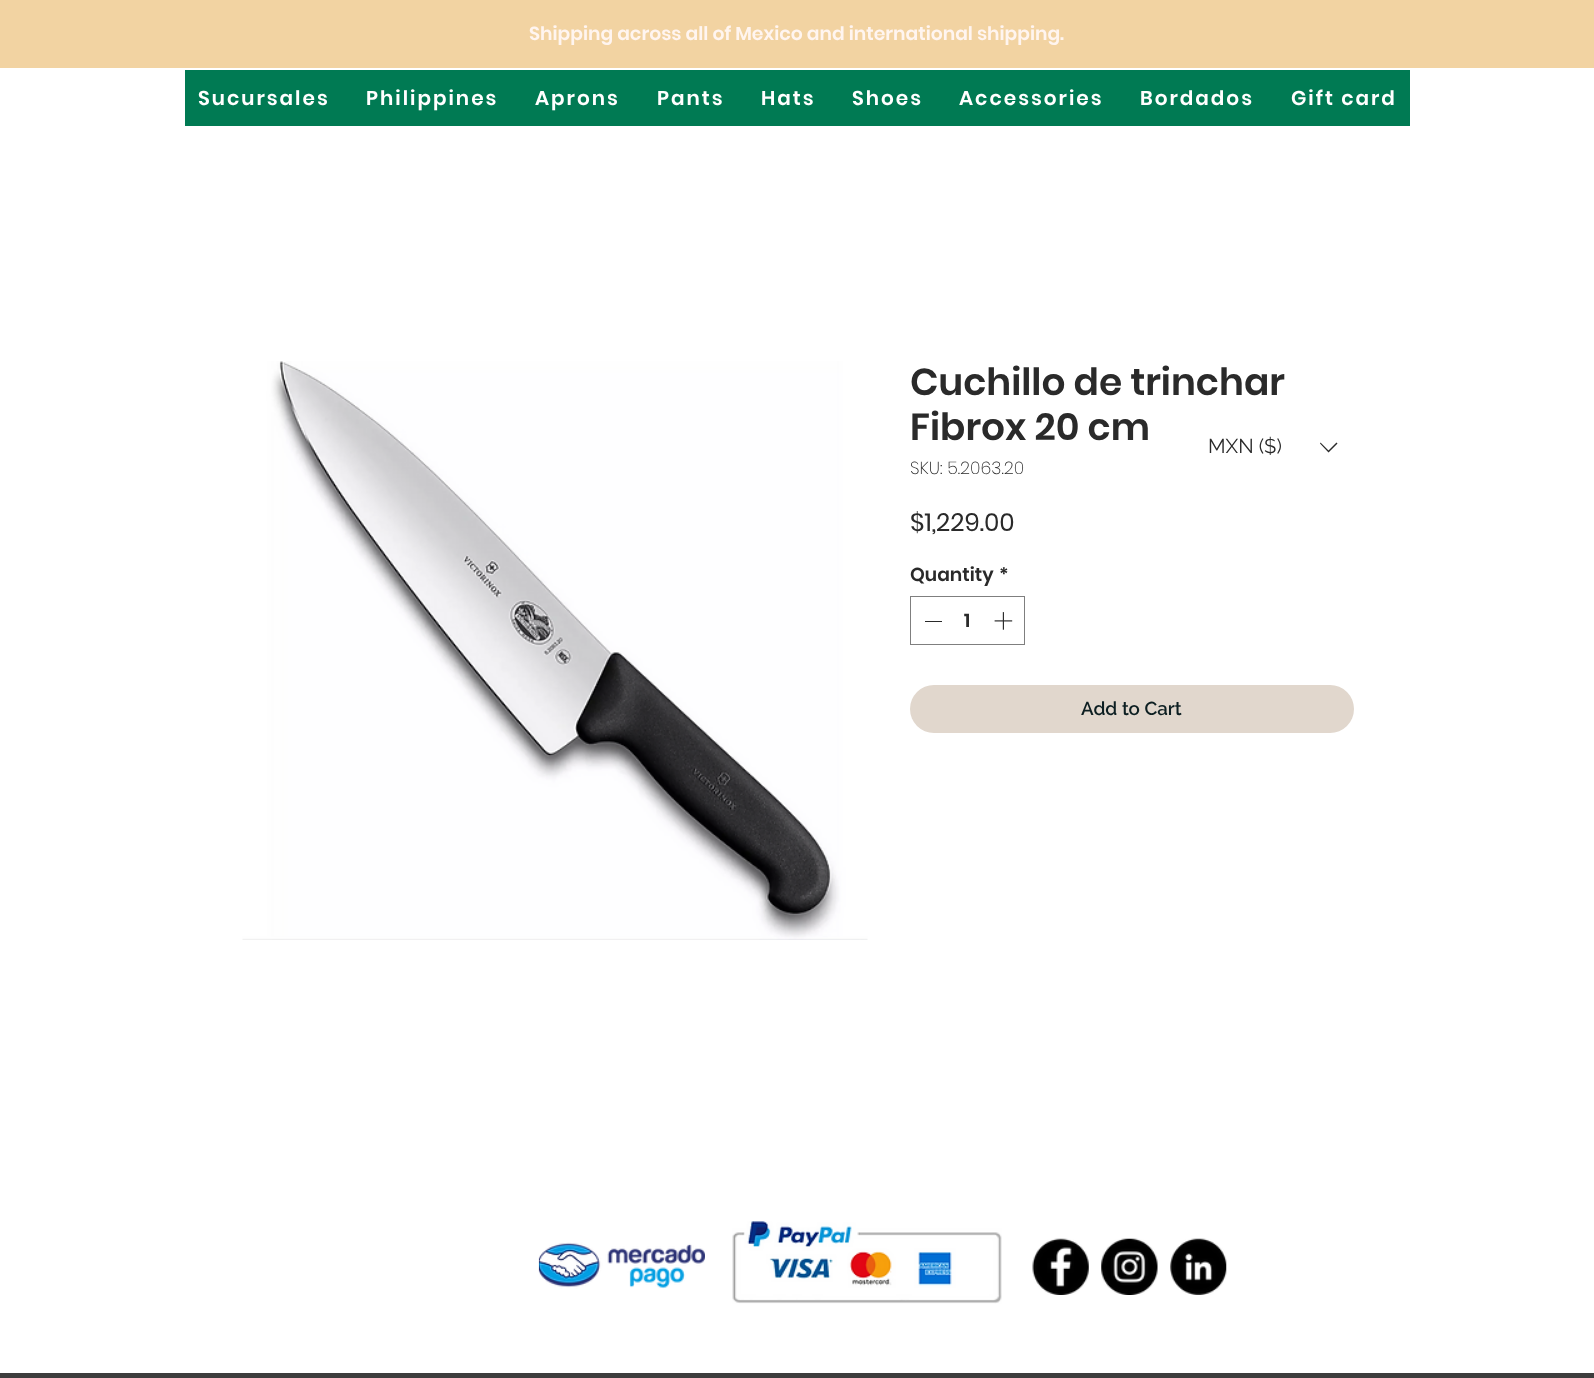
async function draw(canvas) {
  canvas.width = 1594
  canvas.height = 1378
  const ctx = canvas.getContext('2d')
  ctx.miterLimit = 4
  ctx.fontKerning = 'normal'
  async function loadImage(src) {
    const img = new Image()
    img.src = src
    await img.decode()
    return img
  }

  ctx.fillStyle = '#fff'
  ctx.fillRect(0, 0, 1594, 1378)
  ctx.fillStyle = '#f2d3a2'
  ctx.fillRect(0, 0, 1594, 68)
  ctx.font = '600 18.75px Poppins'
  ctx.fillStyle = '#fff5f0'
  ctx.fillText('Shipping across all of Mexico and international shipping.', 529, 40)
  ctx.fillStyle = '#007a53'
  ctx.fillRect(185, 70, 1225, 56)
  ctx.letterSpacing = '2px'
  ctx.font = '600 20px Poppins'
  ctx.fillStyle = '#fff'
  ctx.fillText('Sucursales', 198, 105)
  ctx.fillText('Philippines', 366, 105)
  ctx.fillText('Aprons', 535, 105)
  ctx.fillText('Pants', 657, 105)
  ctx.fillText('Hats', 761, 105)
  ctx.fillText('Shoes', 852, 105)
  ctx.fillText('Accessories', 959, 105)
  ctx.fillText('Bordados', 1140, 105)
  ctx.fillText('Gift card', 1291, 105)
  ctx.drawImage(await loadImage('image0.png'), 242, 361, 626, 579)
  ctx.letterSpacing = '0px'
  ctx.font = '600 37.5px Poppins'
  ctx.fillStyle = '#2a2a2a'
  ctx.fillText('Cuchillo de trinchar', 910, 395)
  ctx.fillText('Fibrox 20 cm', 910, 440)
  ctx.font = '200 17.5px Poppins'
  ctx.fillText('SKU: 5.2063.20', 910, 474)
  ctx.font = '25px Poppins'
  ctx.fillText('$1,229.00', 910, 531)
  ctx.font = '600 18.75px Poppins'
  ctx.fillText('Quantity', 910, 581)
  ctx.fillText('*', 999, 581)
  ctx.strokeStyle = '#7f7f7f'
  ctx.strokeRect(910.5, 596.5, 114, 48)
  ctx.fillRect(925, 621, 17, 1)
  ctx.fillText('1', 964, 627)
  ctx.drawImage(await loadImage('image1.png'), 994, 612, 19, 18)
  ctx.fillStyle = '#e1d7cd'
  ctx.beginPath()
  ctx.roundRect(910, 685, 444, 48, 24)
  ctx.fill()
  ctx.font = '600 18.75px Raleway'
  ctx.fillStyle = '#0d1f22'
  ctx.fillText('Add to Cart', 1081, 715)
  ctx.font = '20px Raleway'
  ctx.fillStyle = '#2a2a2a'
  ctx.fillText('MXN ($)', 1208, 453)
  ctx.beginPath()
  ctx.moveTo(1336.5, 442.5)
  ctx.lineTo(1337.5, 443.5)
  ctx.lineTo(1328.5, 452.5)
  ctx.lineTo(1320, 443.5)
  ctx.lineTo(1320.5, 442.5)
  ctx.lineTo(1328.5, 450.5)
  ctx.closePath()
  ctx.fill('evenodd')
  ctx.drawImage(await loadImage('image2.png'), 538, 1242, 167, 47)
  ctx.drawImage(await loadImage('image3.png'), 732, 1221, 270, 83)
  ctx.drawImage(await loadImage('image4.png'), 1032, 1238, 57, 57)
  ctx.drawImage(await loadImage('image5.png'), 1101, 1238, 57, 57)
  ctx.drawImage(await loadImage('image6.png'), 1170, 1238, 57, 57)
  ctx.fillStyle = '#3d3d3d'
  ctx.fillRect(0, 1373, 1594, 5)
}

draw(document.querySelector('canvas'))
